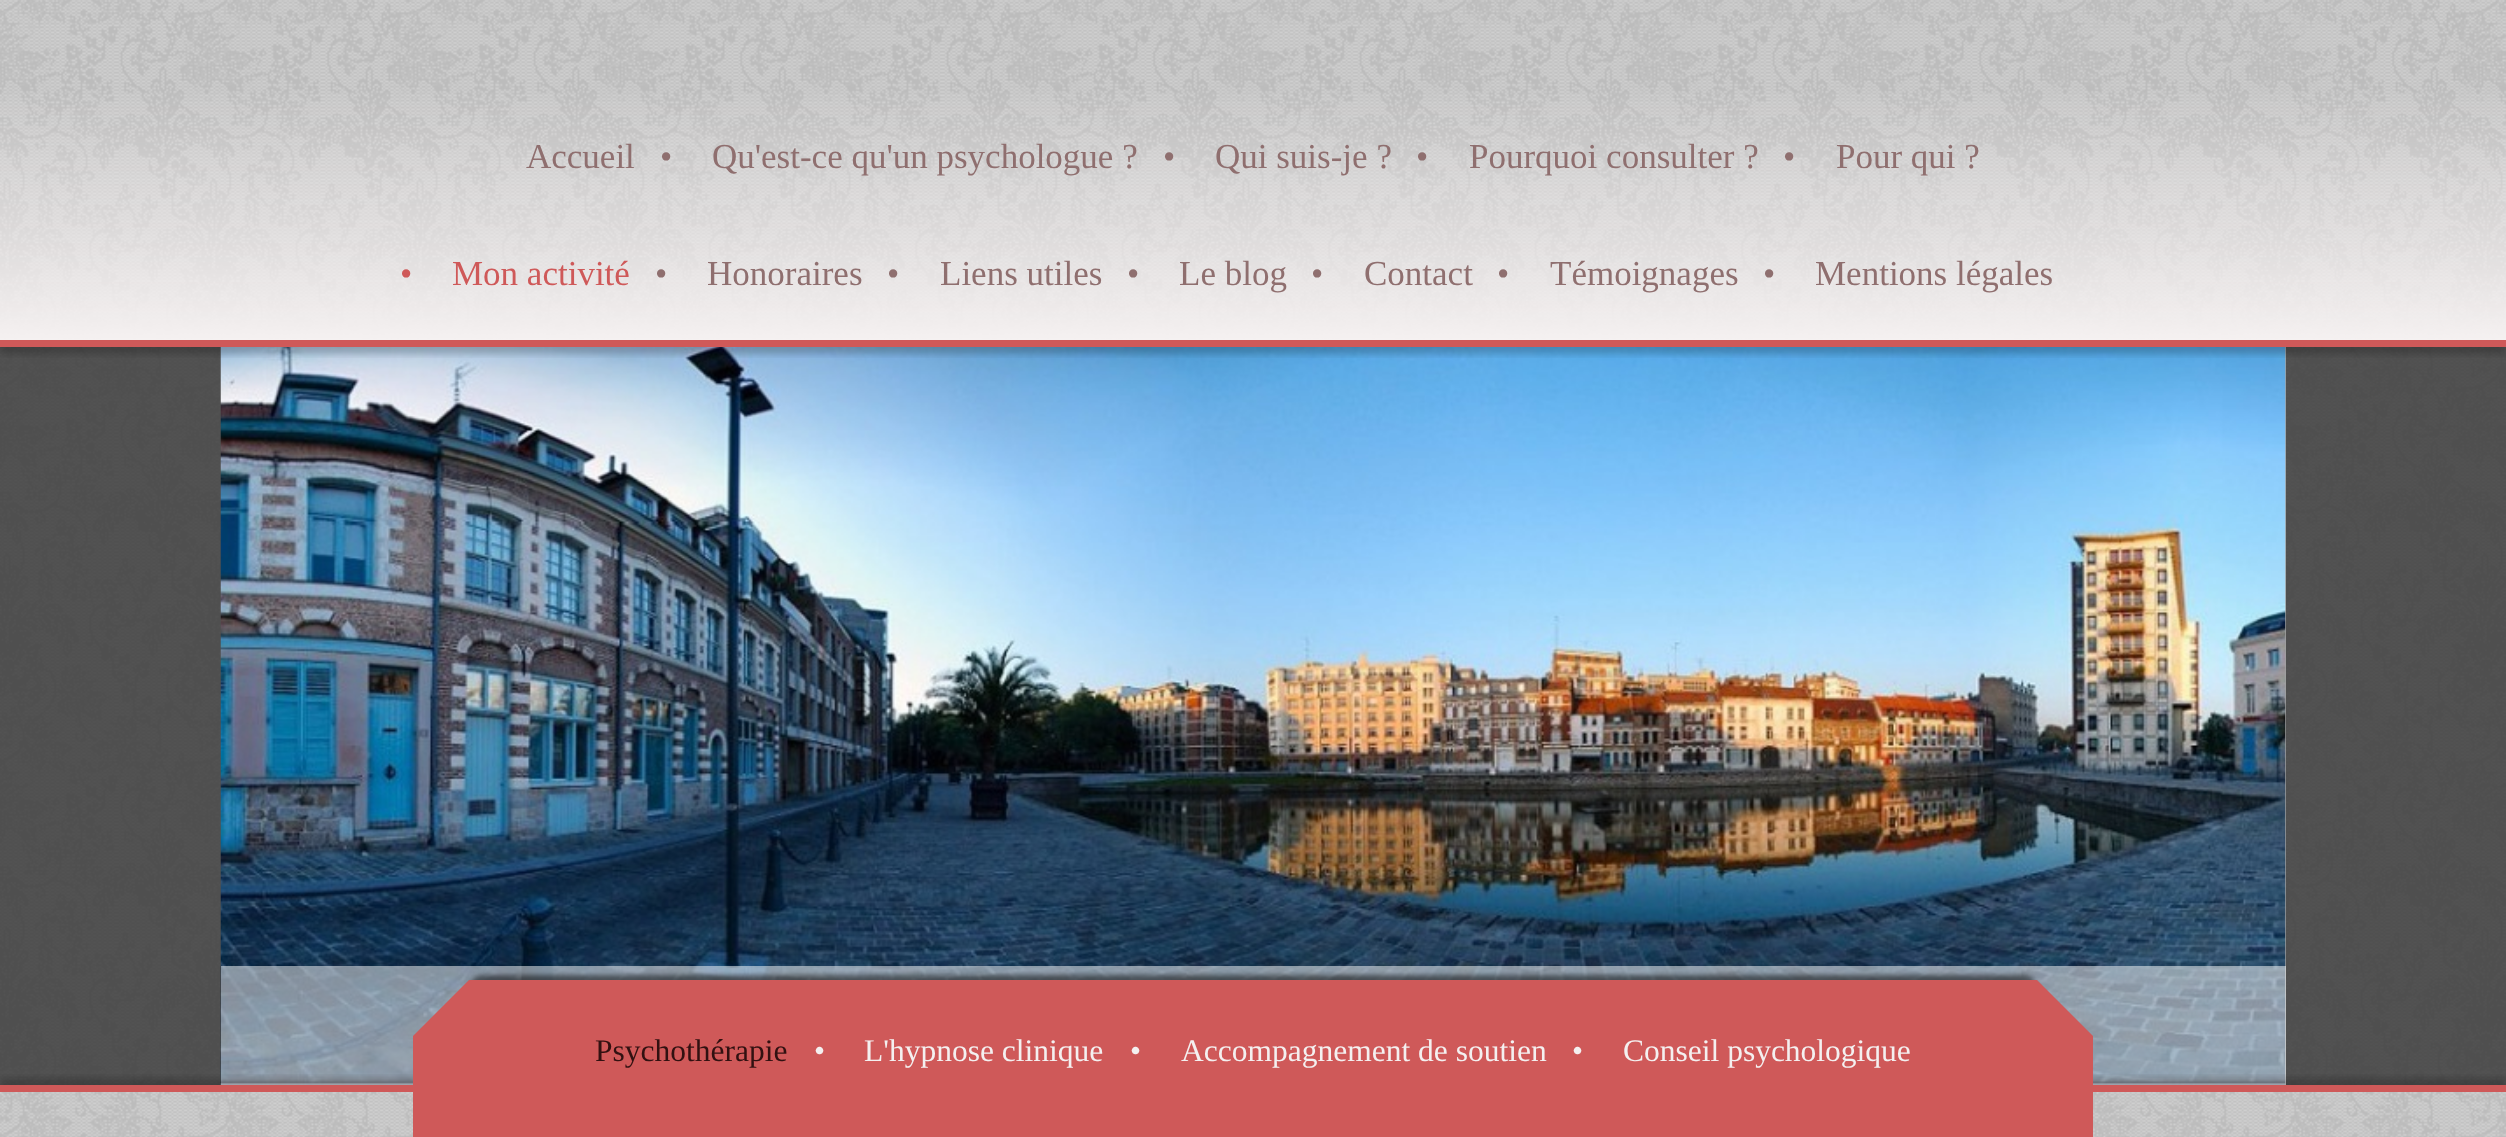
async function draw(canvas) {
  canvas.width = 2506
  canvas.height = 1137
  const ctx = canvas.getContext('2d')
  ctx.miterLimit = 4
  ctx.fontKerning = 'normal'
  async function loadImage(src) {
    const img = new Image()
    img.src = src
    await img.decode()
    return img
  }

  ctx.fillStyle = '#fff'
  ctx.fillRect(0, 0, 2506, 1137)
  ctx.drawImage(await loadImage('image0.png'), 0, 0, 2506, 1137)
  ctx.fillStyle = '#333333cc'
  ctx.fillRect(0, 347, 2506, 738)
  ctx.fillStyle = '#a0a0a0'
  ctx.fillRect(2285, 347, 1, 738)
  ctx.drawImage(await loadImage('image1.png'), 220, 347, 2066, 738)
  ctx.save()
  ctx.beginPath()
  ctx.rect(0, 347, 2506, 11)
  ctx.clip()
  ctx.fillStyle = '#00000033'
  ctx.filter = 'blur(3.5px)'
  ctx.beginPath()
  ctx.rect(0, 95, 2506, 259)
  ctx.fill()
  ctx.filter = 'none'
  ctx.restore()
  ctx.fillStyle = '#cf5959'
  ctx.fillRect(0, 340, 2506, 7)
  ctx.font = '35px Liberation Serif'
  ctx.fillStyle = '#8f6f6f'
  ctx.fillText('Accueil', 526, 168)
  ctx.fillText('•', 660, 168)
  ctx.fillText('Qu\'est-ce qu\'un psychologue ?', 712, 168)
  ctx.fillText('•', 1163, 168)
  ctx.fillText('Qui suis-je ?', 1215, 168)
  ctx.fillText('•', 1416, 168)
  ctx.fillText('Pourquoi consulter ?', 1469, 168)
  ctx.fillText('•', 1783, 168)
  ctx.fillText('Pour qui ?', 1836, 168)
  ctx.fillStyle = '#cf5959'
  ctx.fillText('•', 400, 285)
  ctx.fillText('Mon activité', 452, 285)
  ctx.fillStyle = '#8f6f6f'
  ctx.fillText('•', 655, 285)
  ctx.fillText('Honoraires', 707, 285)
  ctx.fillText('•', 887, 285)
  ctx.fillText('Liens utiles', 940, 285)
  ctx.fillText('•', 1127, 285)
  ctx.fillText('Le blog', 1179, 285)
  ctx.fillText('•', 1311, 285)
  ctx.fillText('Contact', 1364, 285)
  ctx.fillText('•', 1497, 285)
  ctx.fillText('Témoignages', 1550, 285)
  ctx.fillText('•', 1763, 285)
  ctx.fillText('Mentions légales', 1815, 285)
  ctx.fillStyle = '#ffffff80'
  ctx.fillRect(221, 966, 2065, 119)
  ctx.save()
  ctx.beginPath()
  ctx.rect(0, 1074, 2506, 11)
  ctx.clip()
  ctx.fillStyle = '#00000033'
  ctx.filter = 'blur(3.5px)'
  ctx.beginPath()
  ctx.rect(0, 1078, 2506, 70)
  ctx.fill()
  ctx.filter = 'none'
  ctx.restore()
  ctx.fillStyle = '#cf5959'
  ctx.fillRect(0, 1085, 2506, 7)
  ctx.fillStyle = '#00000080'
  ctx.filter = 'blur(2.5px)'
  ctx.beginPath()
  ctx.roundRect(469, 975, 1568, 28, 14)
  ctx.fill()
  ctx.filter = 'none'
  ctx.fillStyle = '#cf5959'
  ctx.beginPath()
  ctx.moveTo(2093, 1036)
  ctx.lineTo(413, 1036)
  ctx.lineTo(469, 980)
  ctx.lineTo(2037, 980)
  ctx.closePath()
  ctx.fill()
  ctx.fillRect(413, 1036, 1680, 101)
  ctx.font = '31.5px Liberation Serif'
  ctx.fillStyle = '#311111'
  ctx.fillText('Psychothérapie', 595, 1061)
  ctx.fillStyle = '#f4f0f0'
  ctx.fillText('•', 814, 1061)
  ctx.fillText('L\'hypnose clinique', 864, 1061)
  ctx.fillText('•', 1130, 1061)
  ctx.fillText('Accompagnement de soutien', 1181, 1061)
  ctx.fillText('•', 1572, 1061)
  ctx.fillText('Conseil psychologique', 1623, 1061)
}

draw(document.querySelector('canvas'))
